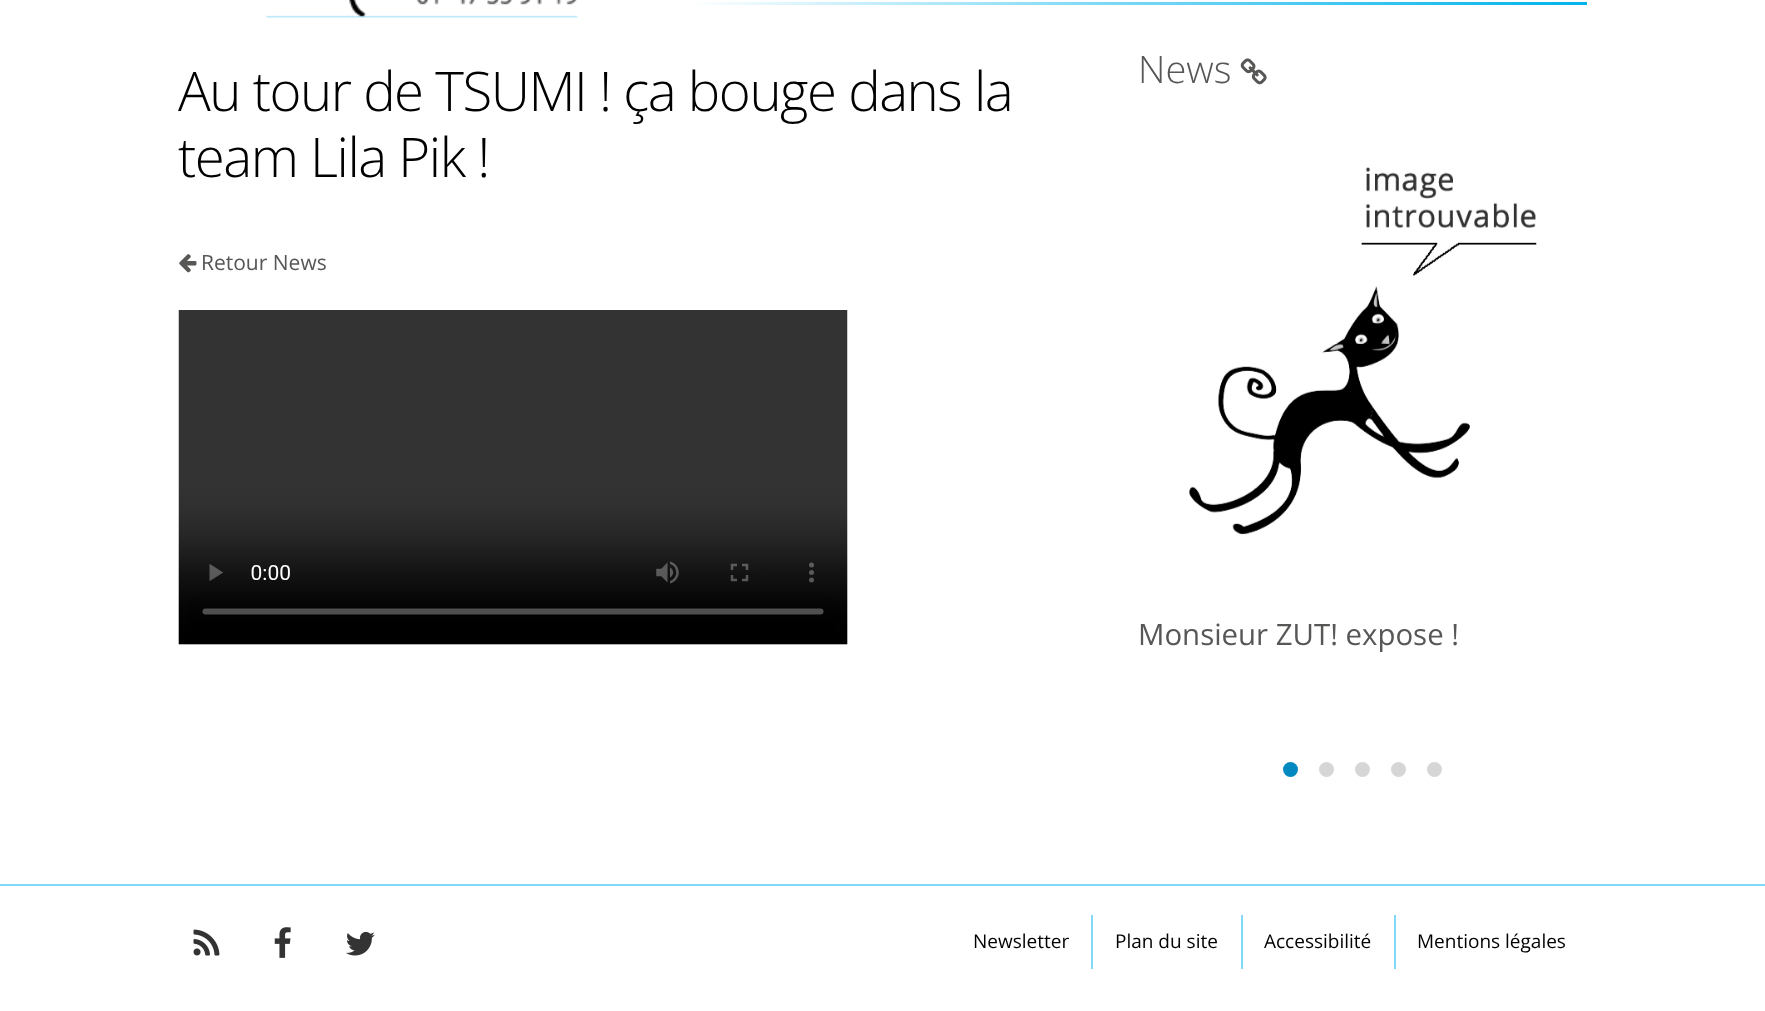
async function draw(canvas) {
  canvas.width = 1765
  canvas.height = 1011
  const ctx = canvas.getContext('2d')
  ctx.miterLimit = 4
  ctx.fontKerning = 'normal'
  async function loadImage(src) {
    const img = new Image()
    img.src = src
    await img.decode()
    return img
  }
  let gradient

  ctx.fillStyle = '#fff'
  ctx.fillRect(0, 0, 1765, 1011)
  ctx.drawImage(await loadImage('image0.png'), 265, 0, 313, 18)
  gradient = ctx.createLinearGradient(687, 3, 1587, 3)
  gradient.addColorStop(0, '#fff')
  gradient.addColorStop(0.43, '#85dbf6')
  gradient.addColorStop(1, '#00b3ec')
  ctx.fillStyle = gradient
  ctx.fillRect(687, 2, 900, 3)
  ctx.letterSpacing = '-1.5px'
  ctx.font = '300 54.6px Open Sans'
  ctx.fillStyle = '#000'
  ctx.fillText('Au tour de TSUMI ! ça bouge dans la', 178, 111)
  ctx.fillText('team Lila Pik !', 178, 177)
  ctx.drawImage(await loadImage('image1.png'), 179, 254, 18, 19)
  ctx.letterSpacing = '0px'
  ctx.font = '21px Open Sans'
  ctx.fillStyle = '#575756'
  ctx.fillText('Retour News', 201, 270)
  ctx.drawImage(await loadImage('image2.png'), 178, 310, 670, 335)
  ctx.font = '300 38px Open Sans'
  ctx.fillText('News', 1138, 83)
  ctx.drawImage(await loadImage('image3.png'), 1240, 58, 27, 27)
  ctx.drawImage(await loadImage('image4.png'), 1189, 167, 348, 368)
  ctx.font = '29.4px Open Sans'
  ctx.fillText('Monsieur ZUT! expose !', 1138, 645)
  ctx.fillStyle = '#0088c1'
  ctx.beginPath()
  ctx.arc(1290.5, 769.5, 7.5, 0, 2 * Math.PI)
  ctx.fill()
  ctx.fillStyle = '#d6d6d6'
  ctx.beginPath()
  ctx.arc(1326.5, 769.5, 7.5, 0, 2 * Math.PI)
  ctx.fill()
  ctx.beginPath()
  ctx.arc(1362.5, 769.5, 7.5, 0, 2 * Math.PI)
  ctx.fill()
  ctx.beginPath()
  ctx.arc(1398.5, 769.5, 7.5, 0, 2 * Math.PI)
  ctx.fill()
  ctx.beginPath()
  ctx.arc(1434.5, 769.5, 7.5, 0, 2 * Math.PI)
  ctx.fill()
  ctx.fillStyle = '#80d9f6'
  ctx.fillRect(0, 884, 1765, 2)
  ctx.drawImage(await loadImage('image5.png'), 193, 929, 27, 27)
  ctx.drawImage(await loadImage('image6.png'), 274, 927, 17, 31)
  ctx.drawImage(await loadImage('image7.png'), 346, 931, 29, 25)
  ctx.font = '19px Open Sans'
  ctx.fillStyle = '#000'
  ctx.fillText('Newsletter', 973, 948)
  ctx.fillStyle = '#80d9f6'
  ctx.fillRect(1091, 915, 2, 54)
  ctx.fillStyle = '#000'
  ctx.fillText('Plan du site', 1115, 948)
  ctx.fillStyle = '#80d9f6'
  ctx.fillRect(1241, 915, 2, 54)
  ctx.fillStyle = '#000'
  ctx.fillText('Accessibilité', 1264, 948)
  ctx.fillStyle = '#80d9f6'
  ctx.fillRect(1394, 915, 2, 54)
  ctx.fillStyle = '#000'
  ctx.fillText('Mentions légales', 1417, 948)
}

draw(document.querySelector('canvas'))
